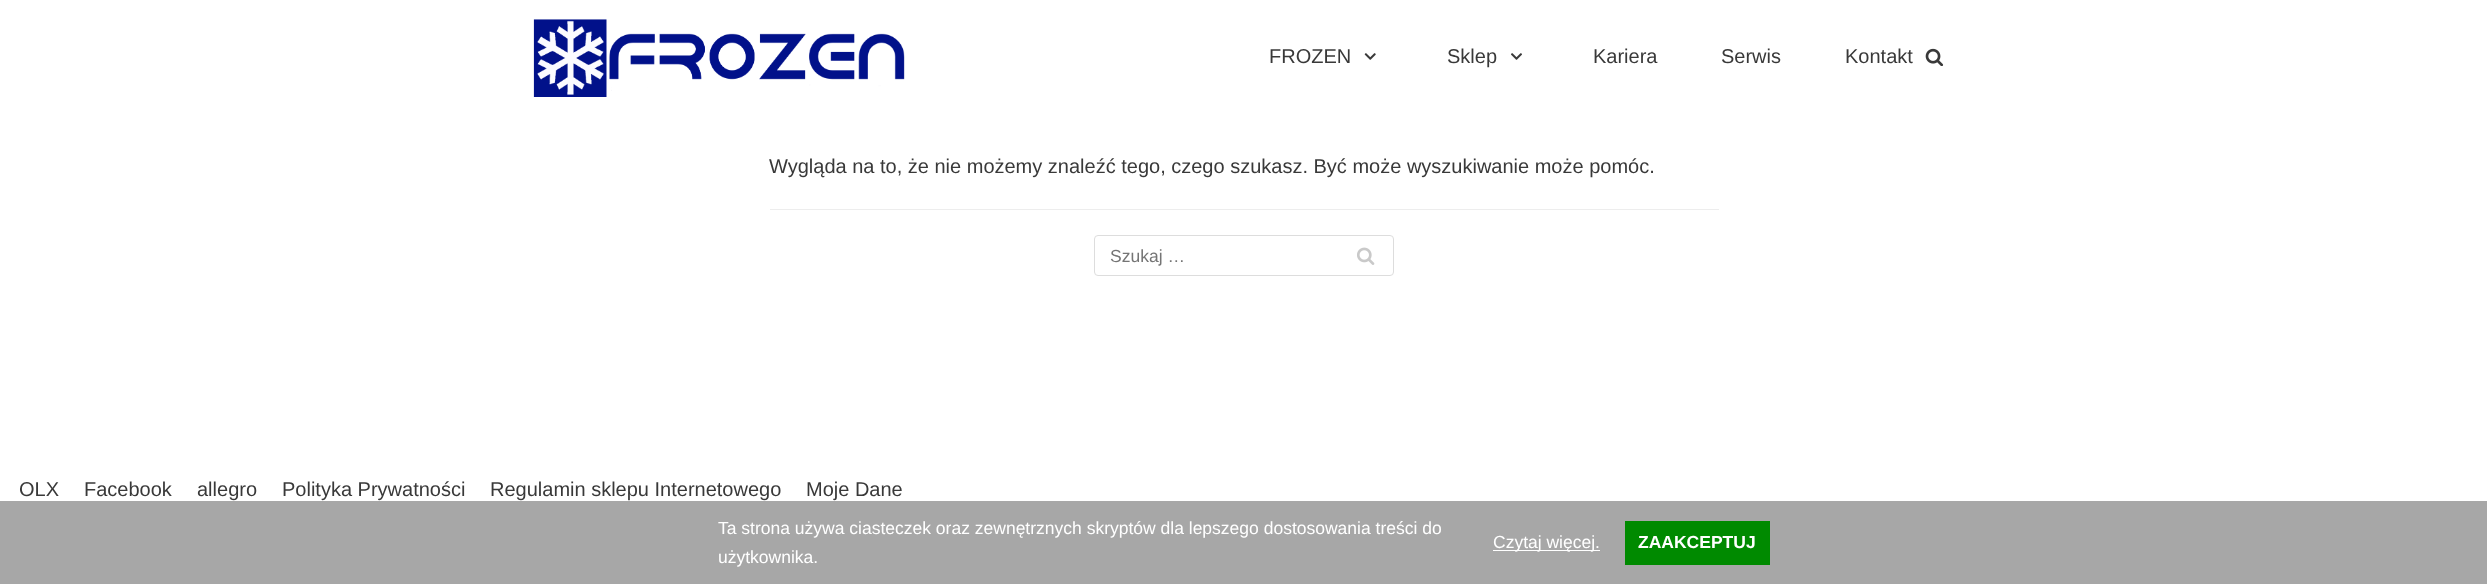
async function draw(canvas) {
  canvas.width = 2487
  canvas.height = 584
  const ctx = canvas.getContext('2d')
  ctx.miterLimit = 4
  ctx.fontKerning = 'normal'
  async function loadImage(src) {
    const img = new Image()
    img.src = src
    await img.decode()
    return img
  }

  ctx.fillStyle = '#fff'
  ctx.fillRect(0, 0, 2487, 584)
  ctx.drawImage(await loadImage('image0.png'), 533, 19, 372, 78)
  ctx.font = '20px Liberation Sans'
  ctx.fillStyle = '#393939'
  ctx.fillText('FROZEN', 1269, 63)
  ctx.drawImage(await loadImage('image1.png'), 1364, 53, 12, 7)
  ctx.fillText('Sklep', 1447, 63)
  ctx.drawImage(await loadImage('image2.png'), 1511, 53, 11, 7)
  ctx.fillText('Kariera', 1593, 63)
  ctx.fillText('Serwis', 1721, 63)
  ctx.fillText('Kontakt', 1845, 63)
  ctx.drawImage(await loadImage('image3.png'), 1925, 48, 19, 18)
  ctx.fillText('Wygląda na to, że nie możemy znaleźć tego, czego szukasz. Być może wyszukiwanie może pomóc.', 769, 173)
  ctx.fillStyle = '#ededed'
  ctx.fillRect(770, 209, 949, 1)
  ctx.beginPath()
  ctx.roundRect(1094.5, 235.5, 299, 40, 3.5)
  ctx.strokeStyle = '#ddd'
  ctx.stroke()
  ctx.font = '17.5px Liberation Sans'
  ctx.fillStyle = '#757575'
  ctx.fillText('Szukaj …', 1110, 262)
  ctx.drawImage(await loadImage('image4.png'), 1357, 247, 18, 18)
  ctx.font = '20px Liberation Sans'
  ctx.fillStyle = '#393939'
  ctx.fillText('OLX', 19, 496)
  ctx.fillText('Facebook', 84, 496)
  ctx.fillText('allegro', 197, 496)
  ctx.fillText('Polityka Prywatności', 282, 496)
  ctx.fillText('Regulamin sklepu Internetowego', 490, 496)
  ctx.fillText('Moje Dane', 806, 496)
  ctx.fillStyle = '#a7a7a7'
  ctx.fillRect(0, 501, 2487, 83)
  ctx.font = '17.5px Liberation Sans'
  ctx.fillStyle = '#fff'
  ctx.fillText('Ta strona używa ciasteczek oraz zewnętrznych skryptów dla lepszego dostosowania treści do', 718, 534)
  ctx.fillText('użytkownika.', 718, 563)
  ctx.fillRect(1493, 550, 107, 1)
  ctx.fillText('Czytaj więcej.', 1493, 548)
  ctx.fillStyle = '#008a00'
  ctx.fillRect(1625, 521, 145, 44)
  ctx.font = 'bold 17.5px Liberation Sans'
  ctx.fillStyle = '#fff'
  ctx.fillText('ZAAKCEPTUJ', 1638, 548)
}

draw(document.querySelector('canvas'))
